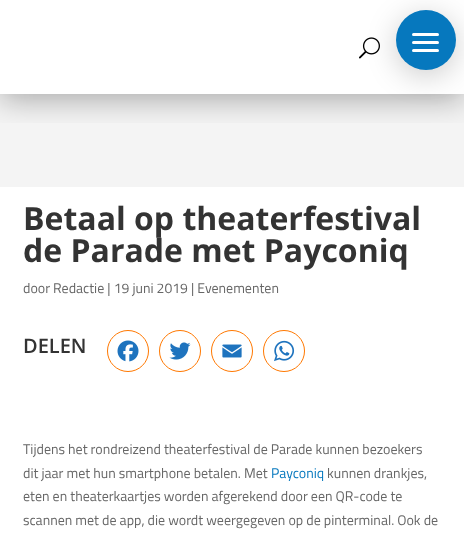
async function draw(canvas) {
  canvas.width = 464
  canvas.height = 546
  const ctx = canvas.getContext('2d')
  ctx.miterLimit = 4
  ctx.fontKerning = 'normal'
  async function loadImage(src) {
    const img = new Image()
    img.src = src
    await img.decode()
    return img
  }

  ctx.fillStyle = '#fff'
  ctx.fillRect(0, 0, 464, 546)
  ctx.fillStyle = '#f4f4f4'
  ctx.fillRect(0, 94, 464, 93)
  ctx.save()
  ctx.beginPath()
  ctx.rect(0, 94, 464, 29)
  ctx.clip()
  ctx.fillStyle = '#0000004d'
  ctx.filter = 'blur(15px)'
  ctx.beginPath()
  ctx.rect(0, 6, 464, 94)
  ctx.fill()
  ctx.filter = 'none'
  ctx.restore()
  ctx.drawImage(await loadImage('image0.png'), 359, 37, 21, 22)
  ctx.fillStyle = '#00000033'
  ctx.filter = 'blur(15px)'
  ctx.beginPath()
  ctx.roundRect(396, 16, 60, 60, 30)
  ctx.fill()
  ctx.filter = 'none'
  ctx.fillStyle = '#0678be'
  ctx.beginPath()
  ctx.arc(426, 40, 30, 0, 2 * Math.PI)
  ctx.fill()
  ctx.fillStyle = '#fff'
  ctx.beginPath()
  ctx.roundRect(412, 41, 27, 3, 1.5)
  ctx.fill()
  ctx.beginPath()
  ctx.roundRect(412, 33, 27, 3, 1.5)
  ctx.fill()
  ctx.beginPath()
  ctx.roundRect(412, 49, 27, 3, 1.5)
  ctx.fill()
  ctx.font = 'bold 32px Open Sans'
  ctx.fillStyle = '#333'
  ctx.fillText('Betaal op theaterfestival', 23, 230)
  ctx.fillText('de Parade met Payconiq', 23, 262)
  ctx.font = '14px Titillium Web'
  ctx.fillStyle = '#666'
  ctx.fillText('door Redactie | 19 juni 2019 | Evenementen', 23, 293)
  ctx.font = '600 20px Open Sans'
  ctx.fillStyle = '#333'
  ctx.fillText('DELEN', 23, 353)
  ctx.beginPath()
  ctx.arc(128, 351, 20.5, 0, 2 * Math.PI)
  ctx.strokeStyle = '#ff7800'
  ctx.stroke()
  ctx.drawImage(await loadImage('image1.png'), 117, 340, 22, 22)
  ctx.beginPath()
  ctx.arc(180, 351, 20.5, 0, 2 * Math.PI)
  ctx.stroke()
  ctx.drawImage(await loadImage('image2.png'), 169, 342, 22, 18)
  ctx.beginPath()
  ctx.arc(232, 351, 20.5, 0, 2 * Math.PI)
  ctx.stroke()
  ctx.drawImage(await loadImage('image3.png'), 222, 344, 20, 14)
  ctx.beginPath()
  ctx.arc(284, 351, 20.5, 0, 2 * Math.PI)
  ctx.stroke()
  ctx.drawImage(await loadImage('image4.png'), 274, 340, 21, 22)
  ctx.font = '14px Titillium Web'
  ctx.fillStyle = '#666'
  ctx.fillText('Tijdens het rondreizend theaterfestival de Parade kunnen bezoekers', 23, 454)
  ctx.fillText('dit jaar met hun smartphone betalen. Met', 23, 478)
  ctx.fillStyle = '#0678be'
  ctx.fillText('Payconiq', 271, 478)
  ctx.fillStyle = '#666'
  ctx.fillText('kunnen drankjes,', 327, 478)
  ctx.fillText('eten en theaterkaartjes worden afgerekend door een QR-code te', 23, 501)
  ctx.fillText('scannen met de app, die wordt weergegeven op de pinterminal. Ook de', 23, 525)
}

draw(document.querySelector('canvas'))
